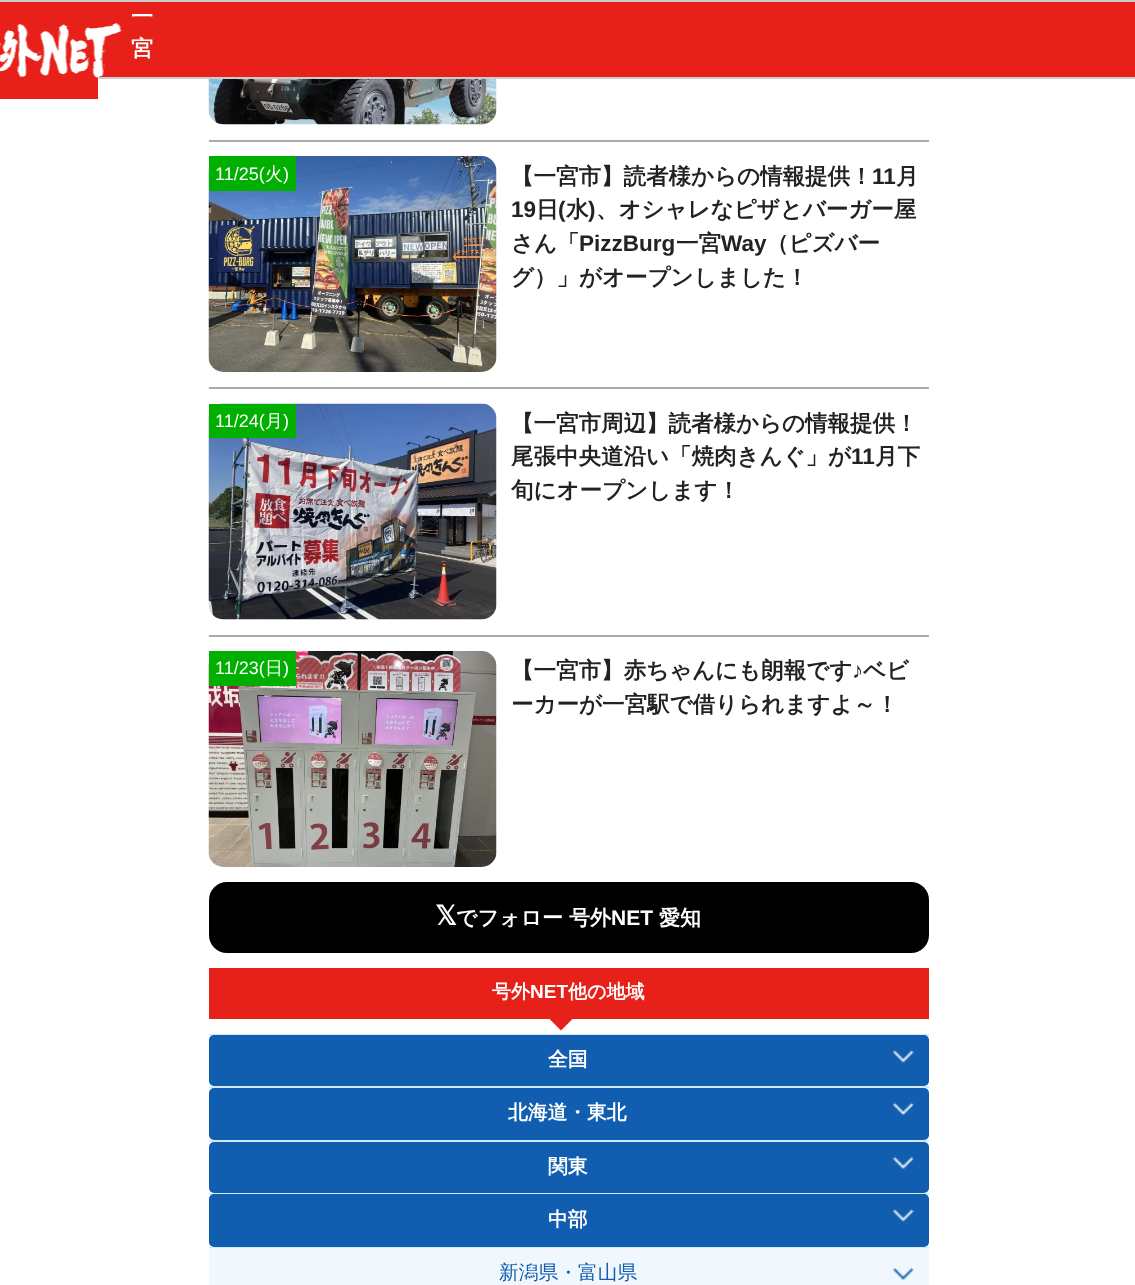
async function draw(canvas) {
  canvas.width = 1135
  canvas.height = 1285
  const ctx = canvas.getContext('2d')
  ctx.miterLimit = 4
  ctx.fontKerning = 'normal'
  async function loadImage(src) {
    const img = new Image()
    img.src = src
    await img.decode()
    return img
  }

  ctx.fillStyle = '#fff'
  ctx.fillRect(0, 0, 1135, 1285)
  ctx.fillStyle = '#e72119'
  ctx.fillRect(98, 2, 1037, 75)
  ctx.fillStyle = '#ccc'
  ctx.fillRect(0, 0, 1135, 2)
  ctx.fillRect(98, 77, 1037, 2)
  ctx.fillStyle = '#e72119'
  ctx.fillRect(0, 2, 98, 97)
  ctx.drawImage(await loadImage('image0.png'), 0, 23, 122, 55)
  ctx.font = 'bold 22px WenQuanYi Zen Hei'
  ctx.fillStyle = '#fff'
  ctx.fillText('一', 131, 24)
  ctx.fillText('宮', 131, 56)
  ctx.drawImage(await loadImage('image1.png'), 208, 79, 289, 46)
  ctx.fillStyle = '#aaa'
  ctx.fillRect(209, 140, 720, 2)
  ctx.drawImage(await loadImage('image2.png'), 208, 156, 289, 216)
  ctx.fillStyle = '#00af00'
  ctx.fillRect(209, 156, 87, 35)
  ctx.font = '18px Liberation Sans'
  ctx.fillStyle = '#fff'
  ctx.fillText('11/25(', 215, 180)
  ctx.font = '500 18px WenQuanYi Zen Hei'
  ctx.fillText('火', 265, 180)
  ctx.font = '18px Liberation Sans'
  ctx.fillText(')', 283, 180)
  ctx.font = 'bold 22.5px WenQuanYi Zen Hei'
  ctx.fillStyle = '#222'
  ctx.fillText('【一宮市】読者様からの情報提供！', 511, 184)
  ctx.font = 'bold 22.5px Liberation Sans'
  ctx.fillText('11', 872, 184)
  ctx.font = 'bold 22.5px WenQuanYi Zen Hei'
  ctx.fillText('月', 896, 184)
  ctx.font = 'bold 22.5px Liberation Sans'
  ctx.fillText('19', 511, 217)
  ctx.font = 'bold 22.5px WenQuanYi Zen Hei'
  ctx.fillText('日', 536, 217)
  ctx.font = 'bold 22.5px Liberation Sans'
  ctx.fillText('(', 558, 217)
  ctx.font = 'bold 22.5px WenQuanYi Zen Hei'
  ctx.fillText('水', 566, 217)
  ctx.font = 'bold 22.5px Liberation Sans'
  ctx.fillText(')', 588, 217)
  ctx.font = 'bold 22.5px WenQuanYi Zen Hei'
  ctx.fillText('、オシャレなピザとバーガー屋', 596, 217)
  ctx.fillText('さん「', 511, 251)
  ctx.font = 'bold 22.5px Liberation Sans'
  ctx.fillText('PizzBurg', 579, 251)
  ctx.font = 'bold 22.5px WenQuanYi Zen Hei'
  ctx.fillText('一宮', 676, 251)
  ctx.font = 'bold 22.5px Liberation Sans'
  ctx.fillText('Way', 721, 251)
  ctx.font = 'bold 22.5px WenQuanYi Zen Hei'
  ctx.fillText('（ピズバー', 766, 251)
  ctx.fillText('グ）」がオープンしました！', 511, 285)
  ctx.fillStyle = '#aaa'
  ctx.fillRect(209, 387, 720, 2)
  ctx.drawImage(await loadImage('image3.png'), 208, 403, 289, 217)
  ctx.fillStyle = '#00af00'
  ctx.fillRect(209, 404, 87, 34)
  ctx.font = '18px Liberation Sans'
  ctx.fillStyle = '#fff'
  ctx.fillText('11/24(', 215, 427)
  ctx.font = '500 18px WenQuanYi Zen Hei'
  ctx.fillText('月', 265, 427)
  ctx.font = '18px Liberation Sans'
  ctx.fillText(')', 283, 427)
  ctx.font = 'bold 22.5px WenQuanYi Zen Hei'
  ctx.fillStyle = '#222'
  ctx.fillText('【一宮市周辺】読者様からの情報提供！', 511, 431)
  ctx.fillText('尾張中央道沿い「焼肉きんぐ」が', 511, 464)
  ctx.font = 'bold 22.5px Liberation Sans'
  ctx.fillText('11', 851, 464)
  ctx.font = 'bold 22.5px WenQuanYi Zen Hei'
  ctx.fillText('月下', 875, 464)
  ctx.fillText('旬にオープンします！', 511, 498)
  ctx.fillStyle = '#aaa'
  ctx.fillRect(209, 635, 720, 2)
  ctx.drawImage(await loadImage('image4.png'), 208, 651, 289, 216)
  ctx.fillStyle = '#00af00'
  ctx.fillRect(209, 651, 87, 35)
  ctx.font = '18px Liberation Sans'
  ctx.fillStyle = '#fff'
  ctx.fillText('11/23(', 215, 674)
  ctx.font = '500 18px WenQuanYi Zen Hei'
  ctx.fillText('日', 265, 674)
  ctx.font = '18px Liberation Sans'
  ctx.fillText(')', 283, 674)
  ctx.font = 'bold 22.5px WenQuanYi Zen Hei'
  ctx.fillStyle = '#222'
  ctx.fillText('【一宮市】赤ちゃんにも朗報です', 511, 678)
  ctx.font = 'bold 22.5px Liberation Sans'
  ctx.fillText('♪', 852, 678)
  ctx.font = 'bold 22.5px WenQuanYi Zen Hei'
  ctx.fillText('ベビ', 863, 678)
  ctx.fillText('ーカーが一宮駅で借りられますよ～！', 511, 712)
  ctx.fillStyle = '#000'
  ctx.beginPath()
  ctx.roundRect(209, 882, 720, 71, 18)
  ctx.fill()
  ctx.font = 'bold 27px DejaVu Sans'
  ctx.fillStyle = '#fff'
  ctx.fillText('𝕏', 435, 925)
  ctx.font = 'bold 21px WenQuanYi Zen Hei'
  ctx.fillText('でフォロー', 456, 925)
  ctx.fillText('号外', 569, 925)
  ctx.font = 'bold 21px Liberation Sans'
  ctx.fillText('NET', 611, 925)
  ctx.font = 'bold 21px WenQuanYi Zen Hei'
  ctx.fillText('愛知', 659, 925)
  ctx.fillStyle = '#e72119'
  ctx.fillRect(209, 968, 720, 51)
  ctx.font = 'bold 19px WenQuanYi Zen Hei'
  ctx.fillStyle = '#fff'
  ctx.fillText('号外', 492, 998)
  ctx.font = 'bold 19px Liberation Sans'
  ctx.fillText('NET', 530, 998)
  ctx.font = 'bold 19px WenQuanYi Zen Hei'
  ctx.fillText('他の地域', 568, 998)
  ctx.fillStyle = '#e72119'
  ctx.beginPath()
  ctx.moveTo(546, 1015.5)
  ctx.lineTo(576, 1015.5)
  ctx.lineTo(561, 1030.5)
  ctx.closePath()
  ctx.fill()
  ctx.fillStyle = '#d0ecfc'
  ctx.fillRect(209, 1034, 720, 2)
  ctx.fillRect(209, 1086, 720, 2)
  ctx.fillStyle = '#115daf'
  ctx.beginPath()
  ctx.roundRect(209, 1035, 720, 51, 5)
  ctx.fill()
  ctx.font = 'bold 19.75px WenQuanYi Zen Hei'
  ctx.fillStyle = '#fff'
  ctx.fillText('全国', 548, 1066)
  ctx.drawImage(await loadImage('image5.png'), 892, 1050, 22, 13)
  ctx.fillStyle = '#d0ecfc'
  ctx.fillRect(209, 1140, 720, 2)
  ctx.fillStyle = '#115daf'
  ctx.beginPath()
  ctx.roundRect(209, 1088, 720, 52, 5)
  ctx.fill()
  ctx.fillStyle = '#fff'
  ctx.fillText('北海道・東北', 508, 1119)
  ctx.drawImage(await loadImage('image6.png'), 892, 1102, 22, 13)
  ctx.fillStyle = '#d0ecfc'
  ctx.fillRect(209, 1193, 720, 2)
  ctx.fillStyle = '#115daf'
  ctx.beginPath()
  ctx.roundRect(209, 1142, 720, 51, 5)
  ctx.fill()
  ctx.fillStyle = '#fff'
  ctx.fillText('関東', 548, 1173)
  ctx.drawImage(await loadImage('image6.png'), 892, 1156, 22, 13)
  ctx.fillStyle = '#115daf'
  ctx.beginPath()
  ctx.roundRect(209, 1194, 720, 53, 5)
  ctx.fill()
  ctx.fillStyle = '#fff'
  ctx.fillText('中部', 548, 1226)
  ctx.drawImage(await loadImage('image5.png'), 892, 1209, 22, 13)
  ctx.fillStyle = '#d0ecfc'
  ctx.fillRect(209, 1247, 720, 1)
  ctx.fillStyle = '#f0f8fe'
  ctx.fillRect(209, 1248, 720, 37)
  ctx.font = '500 19.75px WenQuanYi Zen Hei'
  ctx.fillStyle = '#115daf'
  ctx.fillText('新潟県・富山県', 499, 1279)
  ctx.drawImage(await loadImage('image7.png'), 892, 1267, 22, 13)
}

draw(document.querySelector('canvas'))
